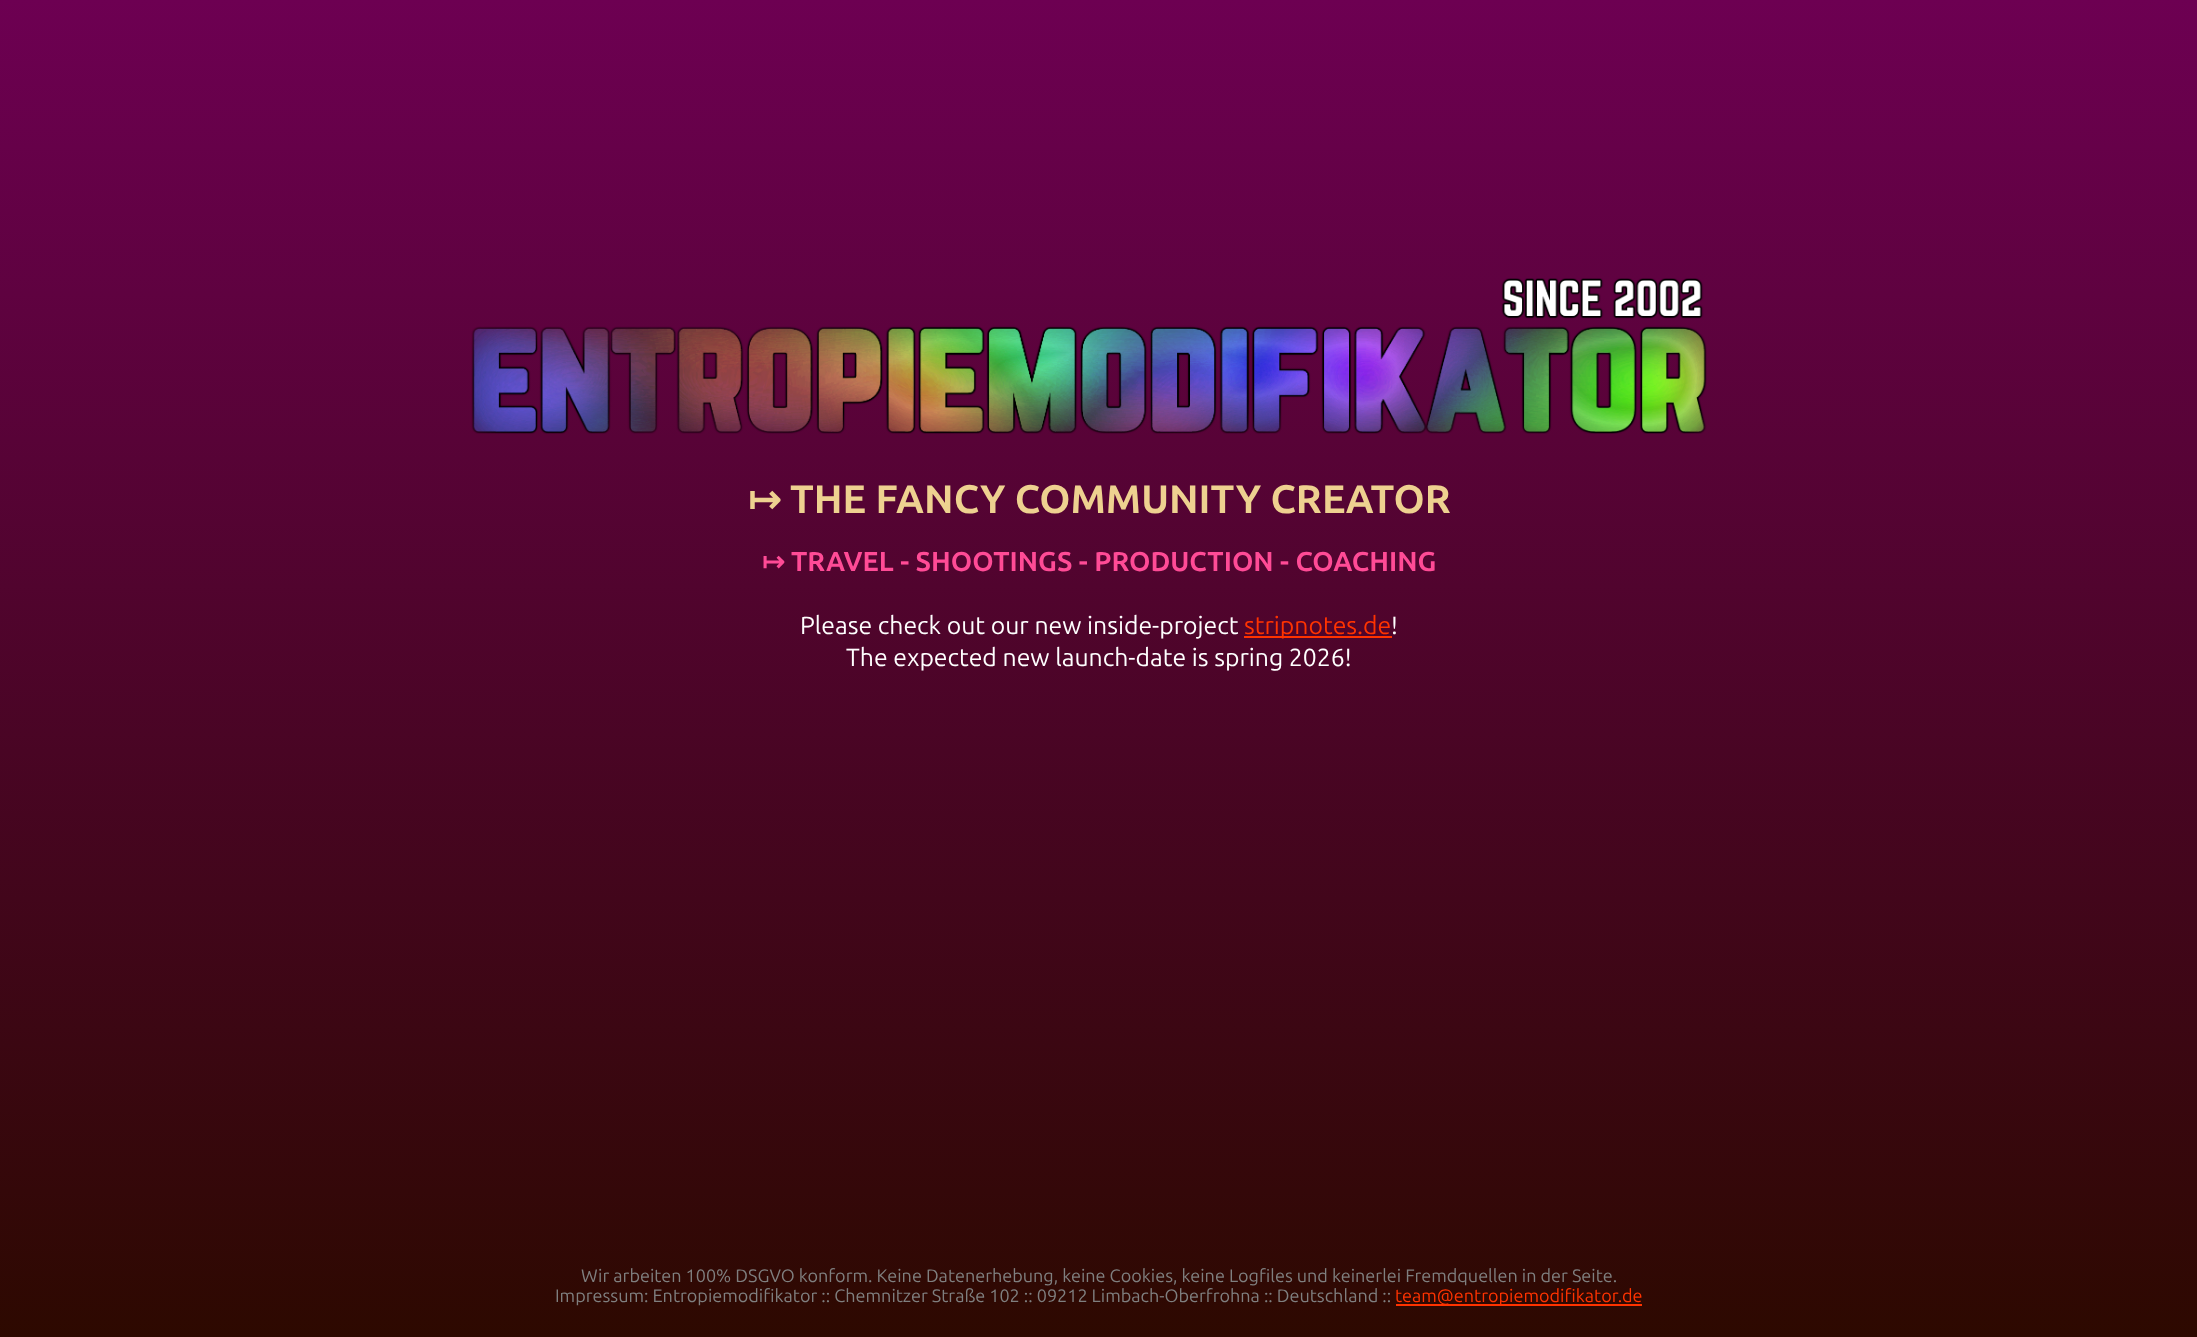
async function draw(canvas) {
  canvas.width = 2197
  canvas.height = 1337
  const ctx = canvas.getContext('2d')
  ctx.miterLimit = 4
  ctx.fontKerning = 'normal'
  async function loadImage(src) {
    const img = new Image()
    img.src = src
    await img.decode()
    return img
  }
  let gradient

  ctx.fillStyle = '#fff'
  ctx.fillRect(0, 0, 2197, 1337)
  gradient = ctx.createLinearGradient(1099, 0, 1099, 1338)
  gradient.addColorStop(0, '#6d0052')
  gradient.addColorStop(1, '#2d0900')
  ctx.fillStyle = gradient
  ctx.fillRect(0, 0, 2197, 1337)
  ctx.drawImage(await loadImage('image0.png'), 471, 278, 1236, 156)
  ctx.font = 'bold 39.7px DejaVu Sans'
  ctx.fillStyle = '#eed190'
  ctx.fillText('↦', 748, 513)
  ctx.font = 'bold 39.7px Ubuntu'
  ctx.fillText('THE FANCY COMMUNITY CREATOR', 790, 513)
  ctx.font = 'bold 27.25px DejaVu Sans'
  ctx.fillStyle = '#ff4b96'
  ctx.fillText('↦', 762, 571)
  ctx.font = 'bold 27.25px Ubuntu'
  ctx.fillText('TRAVEL - SHOOTINGS - PRODUCTION - COACHING', 791, 571)
  ctx.font = '24.75px Ubuntu'
  ctx.fillStyle = '#fff'
  ctx.fillText('Please check out our new inside-project', 800, 634)
  ctx.fillStyle = '#f30'
  ctx.fillRect(1244, 636, 148, 2)
  ctx.fillText('stripnotes.de', 1244, 634)
  ctx.fillStyle = '#fff'
  ctx.fillText('!', 1391, 634)
  ctx.fillText('The expected new launch-date is spring 2026!', 846, 666)
  ctx.wordSpacing = '-0.1px'
  ctx.font = '18.05px Ubuntu'
  ctx.fillStyle = '#7f7f7f'
  ctx.fillText('Wir arbeiten 100% DSGVO konform. Keine Datenerhebung, keine Cookies, keine Logfiles und keinerlei Fremdquellen in der Seite.', 581, 1282)
  ctx.fillText('Impressum: Entropiemodifikator :: Chemnitzer Straße 102 :: 09212 Limbach-Oberfrohna :: Deutschland ::', 555, 1302)
  ctx.fillStyle = '#f30'
  ctx.fillRect(1396, 1304, 246, 2)
  ctx.wordSpacing = '0px'
  ctx.fillText('team@entropiemodifikator.de', 1395, 1302)
}

draw(document.querySelector('canvas'))
